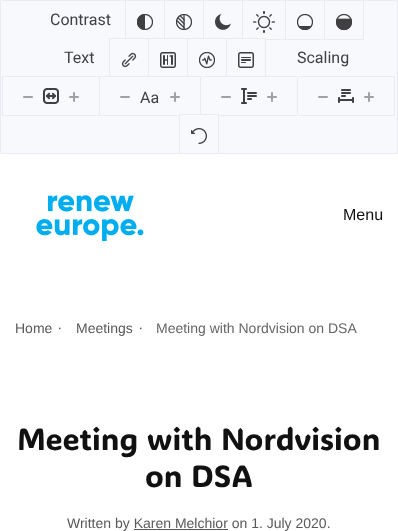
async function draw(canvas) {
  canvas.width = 398
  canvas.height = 531
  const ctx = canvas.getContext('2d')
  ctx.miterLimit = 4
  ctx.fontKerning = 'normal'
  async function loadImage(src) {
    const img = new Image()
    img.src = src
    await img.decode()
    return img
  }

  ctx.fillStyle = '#fff'
  ctx.fillRect(0, 0, 398, 531)
  ctx.fillStyle = '#f8f9fc'
  ctx.beginPath()
  ctx.rect(0.5, 0.5, 397, 153)
  ctx.fill()
  ctx.strokeStyle = '#ebecf1'
  ctx.stroke()
  ctx.font = '16px Roboto'
  ctx.fillStyle = '#404042'
  ctx.fillText('Contrast', 50, 25)
  ctx.strokeRect(125.5, 0.5, 39, 39)
  ctx.drawImage(await loadImage('image0.png'), 137, 14, 16, 16)
  ctx.strokeRect(164.5, 0.5, 39, 39)
  ctx.drawImage(await loadImage('image1.png'), 176, 14, 16, 16)
  ctx.strokeRect(203.5, 0.5, 39, 39)
  ctx.drawImage(await loadImage('image2.png'), 215, 14, 16, 16)
  ctx.strokeRect(242.5, 0.5, 43, 39)
  ctx.drawImage(await loadImage('image3.png'), 253, 11, 22, 22)
  ctx.strokeRect(285.5, 0.5, 39, 39)
  ctx.drawImage(await loadImage('image4.png'), 297, 14, 16, 16)
  ctx.strokeRect(324.5, 0.5, 39, 39)
  ctx.drawImage(await loadImage('image5.png'), 336, 14, 16, 16)
  ctx.fillText('Text', 64, 63)
  ctx.fillStyle = '#f8f9fc'
  ctx.fillRect(125, 39, 23, 1)
  ctx.strokeRect(109.5, 38.5, 39, 39)
  ctx.drawImage(await loadImage('image6.png'), 121, 52, 16, 16)
  ctx.fillRect(149, 39, 38, 1)
  ctx.strokeRect(148.5, 38.5, 39, 39)
  ctx.drawImage(await loadImage('image7.png'), 160, 52, 16, 16)
  ctx.fillRect(188, 39, 38, 1)
  ctx.strokeRect(187.5, 38.5, 39, 39)
  ctx.drawImage(await loadImage('image8.png'), 199, 52, 16, 16)
  ctx.fillRect(227, 39, 38, 1)
  ctx.strokeRect(226.5, 38.5, 39, 39)
  ctx.drawImage(await loadImage('image9.png'), 238, 52, 16, 16)
  ctx.fillStyle = '#404042'
  ctx.fillText('Scaling', 297, 63)
  ctx.strokeRect(2.5, 76.5, 97, 39)
  ctx.beginPath()
  ctx.moveTo(32, 97)
  ctx.lineTo(24, 97)
  ctx.strokeStyle = '#a1a1a2'
  ctx.lineWidth = 2
  ctx.lineCap = 'round'
  ctx.stroke()
  ctx.drawImage(await loadImage('image10.png'), 43, 88, 16, 16)
  ctx.beginPath()
  ctx.moveTo(74, 93)
  ctx.lineTo(74, 101)
  ctx.moveTo(78, 97)
  ctx.lineTo(70, 97)
  ctx.stroke()
  ctx.fillStyle = '#f8f9fc'
  ctx.fillRect(109, 77, 91, 1)
  ctx.strokeStyle = '#ebecf1'
  ctx.lineWidth = 1
  ctx.strokeRect(99.5, 76.5, 101, 39)
  ctx.beginPath()
  ctx.moveTo(129, 97)
  ctx.lineTo(121, 97)
  ctx.strokeStyle = '#a1a1a2'
  ctx.lineWidth = 2
  ctx.stroke()
  ctx.fillStyle = '#404042'
  ctx.fillText('Aa', 140, 103)
  ctx.beginPath()
  ctx.moveTo(175, 93)
  ctx.lineTo(175, 101)
  ctx.moveTo(179, 97)
  ctx.lineTo(171, 97)
  ctx.stroke()
  ctx.fillStyle = '#f8f9fc'
  ctx.fillRect(201, 77, 65, 1)
  ctx.strokeStyle = '#ebecf1'
  ctx.lineWidth = 1
  ctx.strokeRect(200.5, 76.5, 97, 39)
  ctx.beginPath()
  ctx.moveTo(230, 97)
  ctx.lineTo(222, 97)
  ctx.strokeStyle = '#a1a1a2'
  ctx.lineWidth = 2
  ctx.stroke()
  ctx.drawImage(await loadImage('image11.png'), 241, 88, 16, 16)
  ctx.beginPath()
  ctx.moveTo(272, 93)
  ctx.lineTo(272, 101)
  ctx.moveTo(276, 97)
  ctx.lineTo(268, 97)
  ctx.stroke()
  ctx.strokeStyle = '#ebecf1'
  ctx.lineWidth = 1
  ctx.strokeRect(297.5, 76.5, 97, 39)
  ctx.beginPath()
  ctx.moveTo(327, 97)
  ctx.lineTo(319, 97)
  ctx.strokeStyle = '#a1a1a2'
  ctx.lineWidth = 2
  ctx.stroke()
  ctx.drawImage(await loadImage('image12.png'), 338, 89, 16, 14)
  ctx.beginPath()
  ctx.moveTo(369, 93)
  ctx.lineTo(369, 101)
  ctx.moveTo(373, 97)
  ctx.lineTo(365, 97)
  ctx.stroke()
  ctx.fillRect(180, 115, 38, 1)
  ctx.strokeStyle = '#ebecf1'
  ctx.lineWidth = 1
  ctx.strokeRect(179.5, 114.5, 39, 39)
  ctx.drawImage(await loadImage('image13.png'), 191, 128, 16, 16)
  ctx.drawImage(await loadImage('image14.png'), 36, 195, 108, 47)
  ctx.font = '16px Liberation Sans'
  ctx.fillStyle = '#111'
  ctx.fillText('Menu', 343, 220)
  ctx.font = '14px Liberation Sans'
  ctx.fillStyle = '#595959'
  ctx.fillText('Home', 15, 333)
  ctx.font = '14px Liberation Serif'
  ctx.fillText('∙', 58, 333)
  ctx.font = '14px Liberation Sans'
  ctx.fillText('Meetings', 76, 333)
  ctx.font = '14px Liberation Serif'
  ctx.fillText('∙', 139, 333)
  ctx.font = '14px Liberation Sans'
  ctx.fillStyle = '#666'
  ctx.fillText('Meeting with Nordvision on DSA', 156, 333)
  ctx.font = '30.6px ADLaM Display'
  ctx.fillStyle = '#111'
  ctx.fillText('Meeting with Nordvision', 17, 450)
  ctx.fillText('on DSA', 145, 487)
  ctx.font = '14px Liberation Sans'
  ctx.fillStyle = '#595959'
  ctx.fillText('Written by Karen Melchior on 1. July 2020.', 67, 528)
  ctx.fillRect(134, 529, 94, 1)
}

draw(document.querySelector('canvas'))
